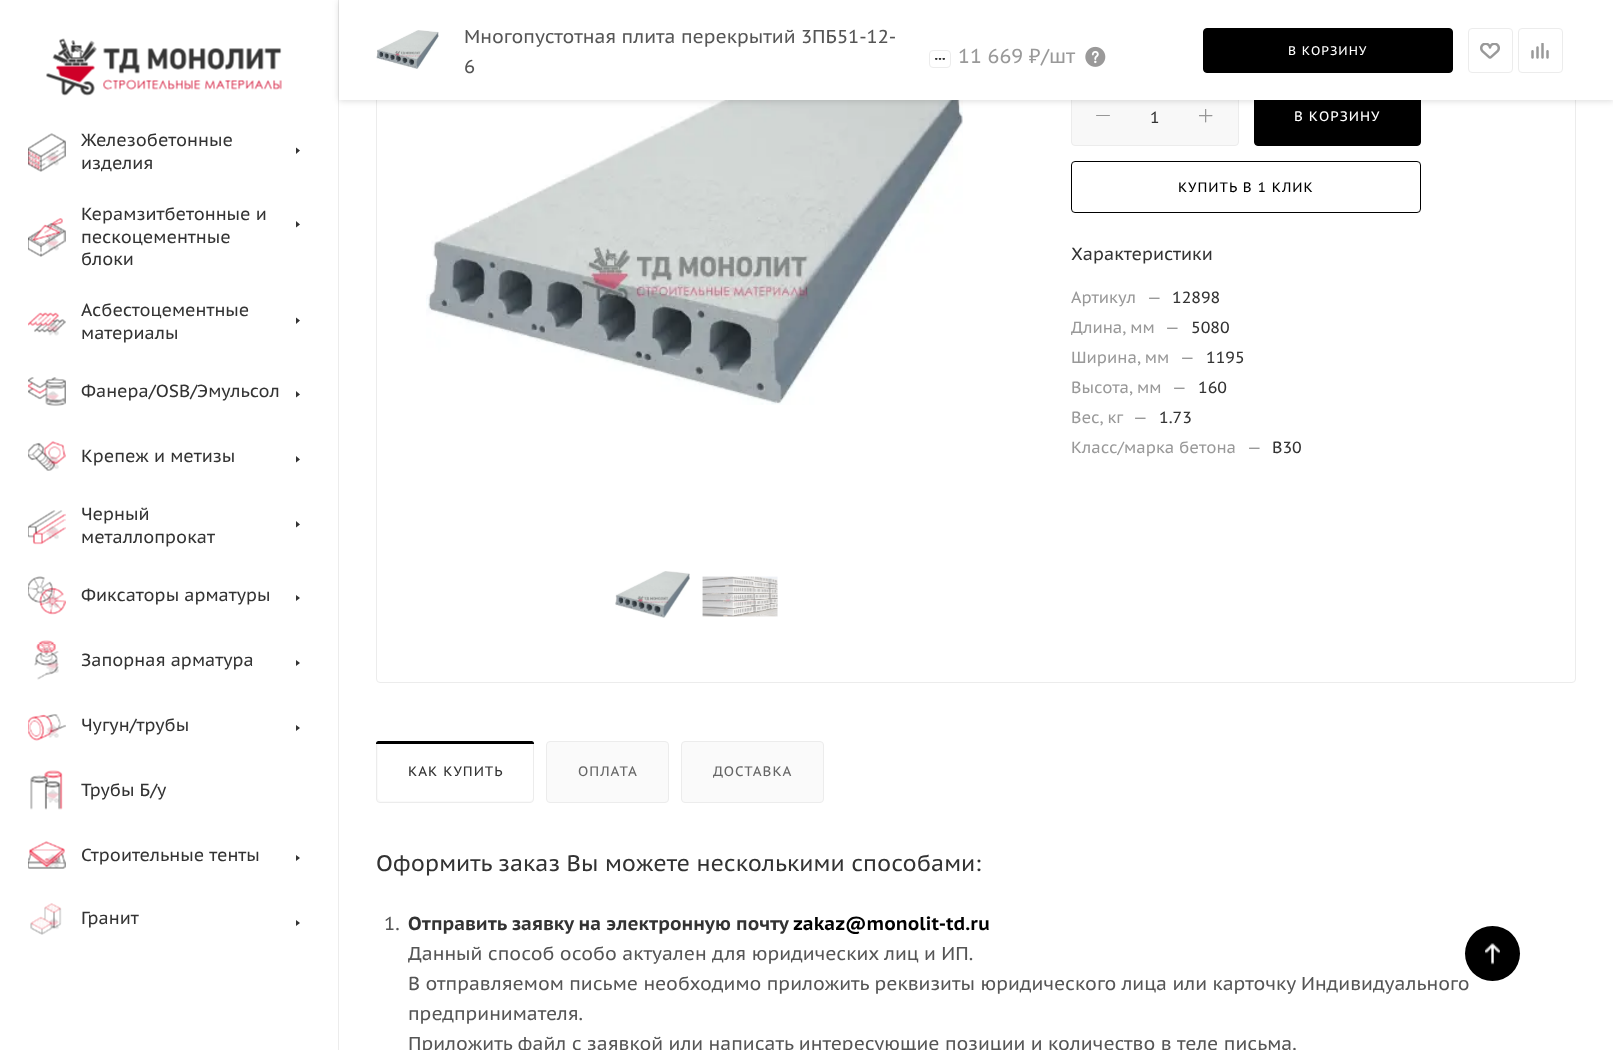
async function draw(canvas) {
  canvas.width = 1613
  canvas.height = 1050
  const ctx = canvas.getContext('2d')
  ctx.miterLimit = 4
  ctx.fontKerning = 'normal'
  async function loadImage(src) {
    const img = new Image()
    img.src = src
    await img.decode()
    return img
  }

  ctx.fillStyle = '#fff'
  ctx.fillRect(0, 0, 1613, 1050)
  ctx.fillStyle = '#ececec'
  ctx.fillRect(338, 0, 1, 1050)
  ctx.beginPath()
  ctx.roundRect(376.5, -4.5, 1199, 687, 3.5)
  ctx.strokeStyle = '#ececec'
  ctx.stroke()
  ctx.drawImage(await loadImage('image18.png'), 426, 100, 537, 305)
  ctx.fillStyle = '#f8f8f8'
  ctx.beginPath()
  ctx.roundRect(1071.5, 86.5, 167, 59, 3.5)
  ctx.fill()
  ctx.stroke()
  ctx.drawImage(await loadImage('image21.png'), 1199, 109, 14, 14)
  ctx.fillStyle = '#000'
  ctx.beginPath()
  ctx.roundRect(1254.5, 86.5, 166, 59, 3.5)
  ctx.fill()
  ctx.strokeStyle = '#000'
  ctx.stroke()
  ctx.fillStyle = '#00000024'
  ctx.filter = 'blur(3px)'
  ctx.beginPath()
  ctx.rect(339, 1, 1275, 100)
  ctx.fill()
  ctx.filter = 'none'
  ctx.fillStyle = '#fff'
  ctx.fillRect(339, 0, 1274, 100)
  ctx.drawImage(await loadImage('image0.png'), 376, 30, 63, 39)
  ctx.font = '18.75px PT Sans Caption'
  ctx.fillStyle = '#555'
  ctx.fillText('Многопустотная плита перекрытий 3ПБ51-12-', 464, 43)
  ctx.fillText('6', 464, 73)
  ctx.beginPath()
  ctx.roundRect(929.5, 50.5, 21, 17, 3.5)
  ctx.strokeStyle = '#ececec'
  ctx.stroke()
  ctx.drawImage(await loadImage('image1.png'), 935, 58, 10, 2)
  ctx.font = '20px PT Sans Caption'
  ctx.fillStyle = '#999'
  ctx.fillText('11 669', 958, 63)
  ctx.font = '20px Noto Sans'
  ctx.fillText('₽', 1029, 63)
  ctx.font = '20px PT Sans Caption'
  ctx.fillText('/шт', 1041, 63)
  ctx.drawImage(await loadImage('image2.png'), 1085, 46, 21, 21)
  ctx.fillStyle = '#000'
  ctx.beginPath()
  ctx.roundRect(1203.5, 28.5, 249, 44, 3.5)
  ctx.fill()
  ctx.strokeStyle = '#000'
  ctx.stroke()
  ctx.letterSpacing = '1px'
  ctx.font = '12.5px PT Sans Caption'
  ctx.fillStyle = '#fff'
  ctx.fillText('В КОРЗИНУ', 1288, 55)
  ctx.beginPath()
  ctx.roundRect(1468.5, 28.5, 44, 44, 3.5)
  ctx.strokeStyle = '#ececec'
  ctx.stroke()
  ctx.drawImage(await loadImage('image3.png'), 1480, 43, 20, 16)
  ctx.beginPath()
  ctx.roundRect(1518.5, 28.5, 44, 44, 3.5)
  ctx.stroke()
  ctx.drawImage(await loadImage('image4.png'), 1531, 43, 18, 16)
  ctx.drawImage(await loadImage('image5.png'), 46, 38, 236, 58)
  ctx.drawImage(await loadImage('image6.png'), 28, 133, 38, 39)
  ctx.letterSpacing = '0px'
  ctx.font = '17.5px PT Sans Caption'
  ctx.fillStyle = '#333'
  ctx.fillText('Железобетонные', 81, 146)
  ctx.fillText('изделия', 81, 169)
  ctx.beginPath()
  ctx.moveTo(296, 154)
  ctx.lineTo(296, 147.5)
  ctx.lineTo(300, 150.5)
  ctx.closePath()
  ctx.fill('evenodd')
  ctx.drawImage(await loadImage('image7.png'), 28, 218, 38, 39)
  ctx.fillText('Керамзитбетонные и', 81, 220)
  ctx.fillText('пескоцементные', 81, 243)
  ctx.fillText('блоки', 81, 265)
  ctx.beginPath()
  ctx.moveTo(296, 227.5)
  ctx.lineTo(296, 221)
  ctx.lineTo(300, 224.5)
  ctx.closePath()
  ctx.fill('evenodd')
  ctx.drawImage(await loadImage('image8.png'), 28, 312, 38, 24)
  ctx.fillText('Асбестоцементные', 81, 316)
  ctx.fillText('материалы', 81, 339)
  ctx.beginPath()
  ctx.moveTo(296, 324)
  ctx.lineTo(296, 317.5)
  ctx.lineTo(300, 320.5)
  ctx.closePath()
  ctx.fill('evenodd')
  ctx.drawImage(await loadImage('image9.png'), 28, 377, 38, 29)
  ctx.fillText('Фанера/OSB/Эмульсол', 81, 397)
  ctx.beginPath()
  ctx.moveTo(296, 397.5)
  ctx.lineTo(296, 391)
  ctx.lineTo(300, 394.5)
  ctx.closePath()
  ctx.fill('evenodd')
  ctx.drawImage(await loadImage('image10.png'), 28, 441, 38, 30)
  ctx.fillText('Крепеж и метизы', 81, 462)
  ctx.beginPath()
  ctx.moveTo(296, 462.5)
  ctx.lineTo(296, 456)
  ctx.lineTo(300, 459.5)
  ctx.closePath()
  ctx.fill('evenodd')
  ctx.drawImage(await loadImage('image11.png'), 28, 510, 38, 35)
  ctx.fillText('Черный', 81, 520)
  ctx.fillText('металлопрокат', 81, 543)
  ctx.beginPath()
  ctx.moveTo(296, 527.5)
  ctx.lineTo(296, 521)
  ctx.lineTo(300, 524.5)
  ctx.closePath()
  ctx.fill('evenodd')
  ctx.drawImage(await loadImage('image12.png'), 28, 576, 38, 39)
  ctx.fillText('Фиксаторы арматуры', 81, 601)
  ctx.beginPath()
  ctx.moveTo(296, 601)
  ctx.lineTo(296, 595)
  ctx.lineTo(300, 598)
  ctx.closePath()
  ctx.fill('evenodd')
  ctx.drawImage(await loadImage('image13.png'), 34, 640, 25, 40)
  ctx.fillText('Запорная арматура', 81, 666)
  ctx.beginPath()
  ctx.moveTo(296, 666)
  ctx.lineTo(296, 660)
  ctx.lineTo(300, 663)
  ctx.closePath()
  ctx.fill('evenodd')
  ctx.drawImage(await loadImage('image14.png'), 28, 714, 38, 27)
  ctx.fillText('Чугун/трубы', 81, 731)
  ctx.beginPath()
  ctx.moveTo(296, 731)
  ctx.lineTo(296, 725)
  ctx.lineTo(300, 728)
  ctx.closePath()
  ctx.fill('evenodd')
  ctx.drawImage(await loadImage('image15.png'), 30, 770, 33, 40)
  ctx.fillText('Трубы Б/у', 81, 796)
  ctx.drawImage(await loadImage('image16.png'), 28, 841, 38, 28)
  ctx.fillText('Строительные тенты', 81, 861)
  ctx.beginPath()
  ctx.moveTo(296, 861)
  ctx.lineTo(296, 855)
  ctx.lineTo(300, 858)
  ctx.closePath()
  ctx.fill('evenodd')
  ctx.drawImage(await loadImage('image17.png'), 30, 903, 32, 32)
  ctx.fillText('Гранит', 81, 924)
  ctx.beginPath()
  ctx.moveTo(296, 926)
  ctx.lineTo(296, 920)
  ctx.lineTo(300, 923)
  ctx.closePath()
  ctx.fill('evenodd')
  ctx.drawImage(await loadImage('image19.png'), 615, 571, 75, 47)
  ctx.drawImage(await loadImage('image20.png'), 702, 576, 76, 41)
  ctx.fillStyle = '#969696'
  ctx.beginPath()
  ctx.roundRect(1096, 115, 14, 1, 0.5)
  ctx.fill()
  ctx.font = '16px PT Sans Caption'
  ctx.fillStyle = '#333'
  ctx.fillText('1', 1150, 123)
  ctx.letterSpacing = '1px'
  ctx.font = '13.75px PT Sans Caption'
  ctx.fillStyle = '#fff'
  ctx.fillText('В КОРЗИНУ', 1294, 121)
  ctx.beginPath()
  ctx.roundRect(1071.5, 161.5, 349, 51, 3.5)
  ctx.strokeStyle = '#000'
  ctx.stroke()
  ctx.fillStyle = '#000'
  ctx.fillText('КУПИТЬ В 1 КЛИК', 1178, 192)
  ctx.letterSpacing = '0px'
  ctx.font = '17.5px PT Sans Caption'
  ctx.fillStyle = '#333'
  ctx.fillText('Характеристики', 1071, 260)
  ctx.font = '16.25px PT Sans Caption'
  ctx.fillStyle = '#999'
  ctx.fillText('Артикул', 1071, 303)
  ctx.fillText('—', 1147, 303)
  ctx.fillStyle = '#333'
  ctx.fillText('12898', 1172, 303)
  ctx.fillStyle = '#999'
  ctx.fillText('Длина, мм', 1071, 333)
  ctx.fillText('—', 1165, 333)
  ctx.fillStyle = '#333'
  ctx.fillText('5080', 1191, 333)
  ctx.fillStyle = '#999'
  ctx.fillText('Ширина, мм', 1071, 363)
  ctx.fillText('—', 1180, 363)
  ctx.fillStyle = '#333'
  ctx.fillText('1195', 1206, 363)
  ctx.fillStyle = '#999'
  ctx.fillText('Высота, мм', 1071, 393)
  ctx.fillText('—', 1172, 393)
  ctx.fillStyle = '#333'
  ctx.fillText('160', 1198, 393)
  ctx.fillStyle = '#999'
  ctx.fillText('Вес, кг', 1071, 423)
  ctx.fillText('—', 1133, 423)
  ctx.fillStyle = '#333'
  ctx.fillText('1.73', 1159, 423)
  ctx.fillStyle = '#999'
  ctx.fillText('Класс/марка бетона', 1071, 453)
  ctx.fillText('—', 1247, 453)
  ctx.fillStyle = '#333'
  ctx.fillText('В30', 1272, 453)
  ctx.fillStyle = '#fafafa'
  ctx.beginPath()
  ctx.roundRect(376.5, 741.5, 157, 61, 3.5)
  ctx.fill()
  ctx.strokeStyle = '#ececec'
  ctx.stroke()
  ctx.fillStyle = '#fff'
  ctx.beginPath()
  ctx.roundRect(378, 743, 155, 58, 4)
  ctx.fill()
  ctx.fillStyle = '#000'
  ctx.beginPath()
  ctx.roundRect(376, 741, 158, 3, [2.5, 2.5, 0, 0])
  ctx.fill()
  ctx.letterSpacing = '1px'
  ctx.font = '13.75px PT Sans Caption'
  ctx.fillStyle = '#333'
  ctx.fillText('КАК КУПИТЬ', 408, 776)
  ctx.fillStyle = '#fafafa'
  ctx.beginPath()
  ctx.roundRect(546.5, 741.5, 122, 61, 3.5)
  ctx.fill()
  ctx.stroke()
  ctx.fillStyle = '#666'
  ctx.fillText('ОПЛАТА', 578, 776)
  ctx.fillStyle = '#fafafa'
  ctx.beginPath()
  ctx.roundRect(681.5, 741.5, 142, 61, 3.5)
  ctx.fill()
  ctx.stroke()
  ctx.fillStyle = '#666'
  ctx.fillText('ДОСТАВКА', 713, 776)
  ctx.letterSpacing = '0px'
  ctx.font = '22.5px PT Sans Caption'
  ctx.fillStyle = '#333'
  ctx.fillText('Оформить заказ Вы можете несколькими способами:', 376, 871)
  ctx.font = '18.75px PT Sans Caption'
  ctx.fillStyle = '#555'
  ctx.fillText('1.', 384, 930)
  ctx.font = 'bold 18.75px PT Sans Caption'
  ctx.fillStyle = '#333'
  ctx.fillText('Отправить заявку на электронную почту', 408, 930)
  ctx.fillStyle = '#000'
  ctx.fillText('zakaz@monolit-td.ru', 793, 930)
  ctx.font = '18.75px PT Sans Caption'
  ctx.fillStyle = '#555'
  ctx.fillText('Данный способ особо актуален для юридических лиц и ИП.', 408, 960)
  ctx.fillText('В отправляемом письме необходимо приложить реквизиты юридического лица или карточку Индивидуального', 408, 990)
  ctx.fillText('предпринимателя.', 408, 1020)
  ctx.fillText('Приложить файл с заявкой или написать интересующие позиции и количество в теле письма.', 408, 1050)
  ctx.fillStyle = '#000'
  ctx.beginPath()
  ctx.arc(1492.5, 953.5, 27.5, 0, 2 * Math.PI)
  ctx.fill()
  ctx.drawImage(await loadImage('image22.png'), 1485, 943, 15, 22)
}

draw(document.querySelector('canvas'))
